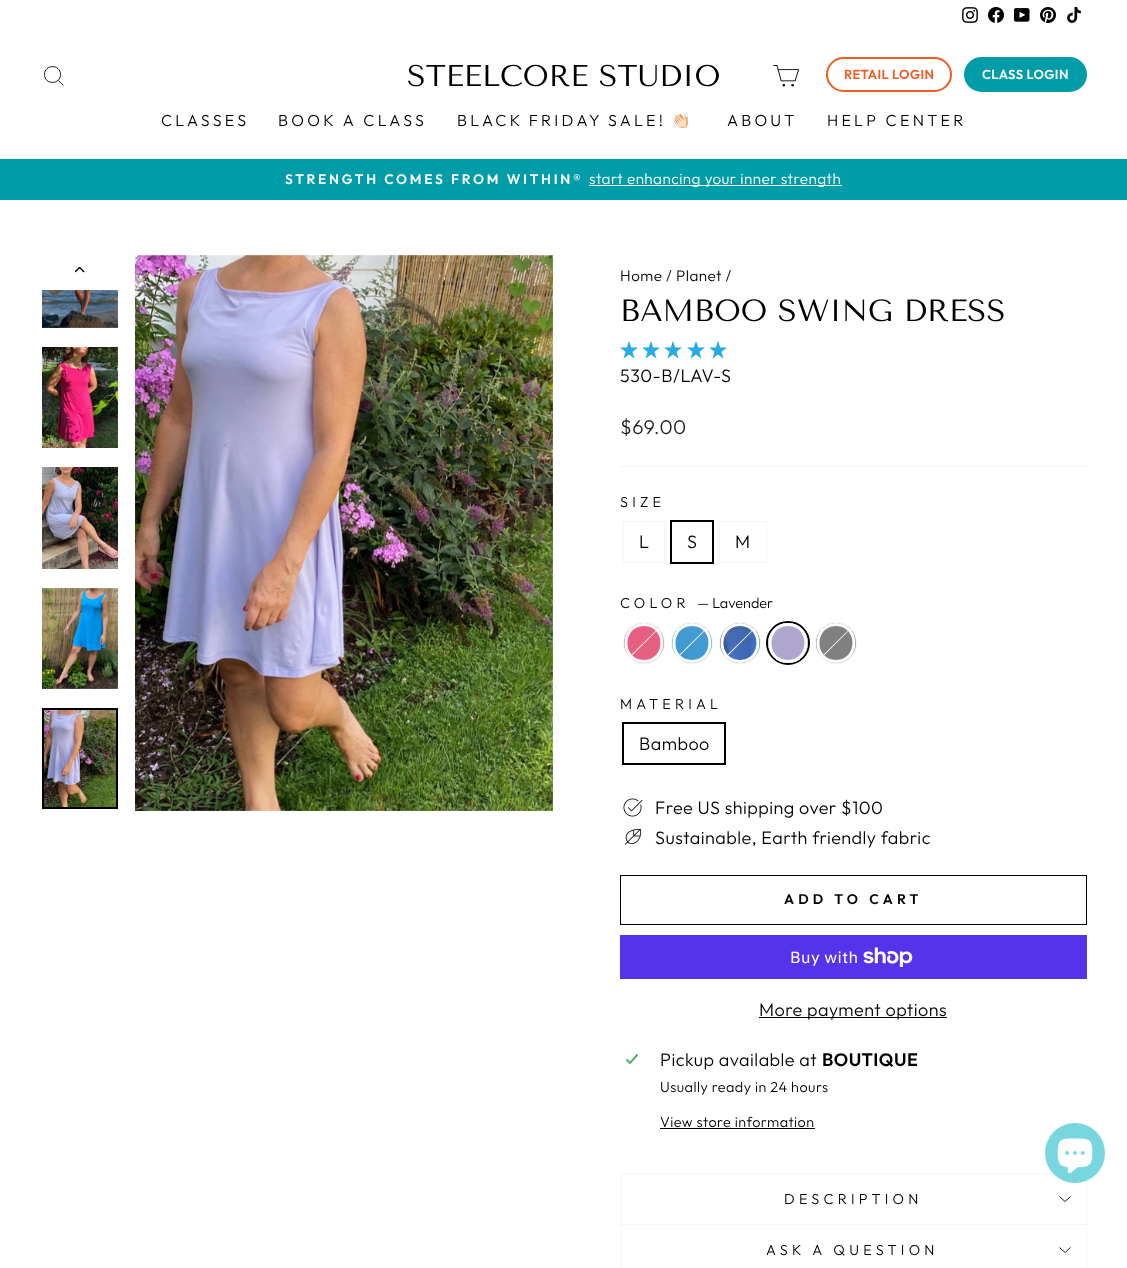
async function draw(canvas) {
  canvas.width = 1127
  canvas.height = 1268
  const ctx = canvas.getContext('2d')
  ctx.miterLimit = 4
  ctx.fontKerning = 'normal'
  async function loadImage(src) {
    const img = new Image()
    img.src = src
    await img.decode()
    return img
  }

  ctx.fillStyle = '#fff'
  ctx.fillRect(0, 0, 1127, 1268)
  ctx.drawImage(await loadImage('image0.png'), 962, 7, 16, 16)
  ctx.drawImage(await loadImage('image1.png'), 988, 7, 16, 16)
  ctx.drawImage(await loadImage('image2.png'), 1014, 8, 16, 14)
  ctx.drawImage(await loadImage('image3.png'), 1040, 7, 16, 16)
  ctx.drawImage(await loadImage('image4.png'), 1067, 7, 14, 16)
  ctx.fillStyle = '#009da9'
  ctx.fillRect(0, 159, 1127, 41)
  ctx.fillStyle = '#00000033'
  ctx.filter = 'blur(0.5px)'
  ctx.beginPath()
  ctx.rect(0, 31, 1127, 128)
  ctx.fill()
  ctx.filter = 'none'
  ctx.fillStyle = '#fff'
  ctx.fillRect(0, 31, 1127, 128)
  ctx.beginPath()
  ctx.moveTo(60.5, 74.5)
  ctx.bezierCurveTo(60.5, 85, 44.5, 85, 44.5, 74.5)
  ctx.bezierCurveTo(44.5, 64, 60.5, 64, 60.5, 74.5)
  ctx.closePath()
  ctx.moveTo(63.5, 85.5)
  ctx.lineTo(58.5, 80.5)
  ctx.strokeStyle = '#000'
  ctx.lineWidth = 0.9
  ctx.stroke()
  ctx.font = '30px Tenor Sans'
  ctx.fillStyle = '#000'
  ctx.fillText('STEELCORE STUDIO', 407, 86)
  ctx.drawImage(await loadImage('image5.png'), 773, 65, 27, 22)
  ctx.beginPath()
  ctx.roundRect(827, 58, 124, 33, 16.5)
  ctx.strokeStyle = '#f05c22'
  ctx.lineWidth = 2
  ctx.stroke()
  ctx.letterSpacing = '0.4px'
  ctx.font = '600 13px Outfit'
  ctx.fillStyle = '#f05c22'
  ctx.fillText('RETAIL LOGIN', 844, 79)
  ctx.fillStyle = '#009da9'
  ctx.beginPath()
  ctx.roundRect(965, 58, 121, 33, 16.5)
  ctx.fill()
  ctx.strokeStyle = '#009da9'
  ctx.stroke()
  ctx.fillStyle = '#fff'
  ctx.fillText('CLASS LOGIN', 982, 79)
  ctx.letterSpacing = '3.25px'
  ctx.font = '300 16px Outfit'
  ctx.fillStyle = '#000'
  ctx.fillText('CLASSES', 161, 126)
  ctx.fillText('BOOK A CLASS', 278, 126)
  ctx.wordSpacing = '-1px'
  ctx.fillText('BLACK FRIDAY SALE!', 457, 126)
  ctx.wordSpacing = '0px'
  ctx.font = '16px Noto Color Emoji'
  ctx.fillText('👏🏻', 671, 126)
  ctx.font = '300 16px Outfit'
  ctx.fillText('ABOUT', 727, 126)
  ctx.fillText('HELP CENTER', 827, 126)
  ctx.letterSpacing = '2.75px'
  ctx.font = '600 13.75px Outfit'
  ctx.fillStyle = '#fff'
  ctx.fillText('STRENGTH COMES FROM WITHIN®', 285, 184)
  ctx.fillRect(589, 185, 253, 1)
  ctx.letterSpacing = '0.45px'
  ctx.font = '300 15.25px Outfit'
  ctx.fillText('start enhancing your inner strength', 589, 184)
  ctx.drawImage(await loadImage('image6.png'), 75, 266, 10, 7)
  ctx.drawImage(await loadImage('image7.png'), 42, 290, 76, 38)
  ctx.drawImage(await loadImage('image8.png'), 42, 347, 76, 101)
  ctx.drawImage(await loadImage('image9.png'), 42, 467, 76, 102)
  ctx.drawImage(await loadImage('image10.png'), 42, 588, 76, 101)
  ctx.drawImage(await loadImage('image11.png'), 44, 710, 72, 97)
  ctx.strokeStyle = '#000'
  ctx.strokeRect(43, 709, 74, 99)
  ctx.drawImage(await loadImage('image12.png'), 135, 255, 1, 556)
  ctx.drawImage(await loadImage('image13.png'), 135, 255, 418, 556)
  ctx.fillStyle = '#000'
  ctx.fillText('Home / Planet /', 620, 281)
  ctx.letterSpacing = '0px'
  ctx.font = '30.6px Tenor Sans'
  ctx.fillText('BAMBOO SWING DRESS', 620, 321)
  ctx.drawImage(await loadImage('image14.png'), 620, 341, 18, 18)
  ctx.drawImage(await loadImage('image14.png'), 642, 341, 18, 18)
  ctx.drawImage(await loadImage('image14.png'), 664, 341, 18, 18)
  ctx.drawImage(await loadImage('image14.png'), 687, 341, 18, 18)
  ctx.drawImage(await loadImage('image14.png'), 709, 341, 18, 18)
  ctx.letterSpacing = '0.45px'
  ctx.font = '300 18px Outfit'
  ctx.fillText('530-B/LAV-S', 620, 382)
  ctx.font = '300 20px Outfit'
  ctx.fillStyle = '#1c1d1d'
  ctx.fillText('$69.00', 620, 434)
  ctx.fillStyle = '#f5f5f5'
  ctx.fillRect(620, 466, 467, 1)
  ctx.letterSpacing = '4.25px'
  ctx.font = '300 14.4px Outfit'
  ctx.fillStyle = '#000'
  ctx.fillText('SIZE', 620, 507)
  ctx.strokeStyle = '#f5f5f5'
  ctx.lineWidth = 1
  ctx.strokeRect(623.5, 521.5, 41, 41)
  ctx.letterSpacing = '0.45px'
  ctx.font = '300 18px Outfit'
  ctx.fillText('L', 639, 548)
  ctx.strokeStyle = '#000'
  ctx.lineWidth = 2
  ctx.strokeRect(671, 521, 42, 42)
  ctx.fillText('S', 687, 548)
  ctx.strokeStyle = '#f5f5f5'
  ctx.lineWidth = 1
  ctx.strokeRect(719.5, 521.5, 47, 41)
  ctx.fillText('M', 735, 548)
  ctx.letterSpacing = '4.25px'
  ctx.font = '300 14.4px Outfit'
  ctx.fillText('COLOR', 620, 608)
  ctx.letterSpacing = '0px'
  ctx.fillText('— Lavender', 697, 608)
  ctx.beginPath()
  ctx.arc(644, 643, 20.5, 0, 2 * Math.PI)
  ctx.stroke()
  ctx.drawImage(await loadImage('image15.png'), 624, 623, 40, 40)
  ctx.fillStyle = '#f5f5f5'
  ctx.beginPath()
  ctx.moveTo(658, 628.5)
  ctx.lineTo(658.5, 629)
  ctx.lineTo(630, 657.5)
  ctx.lineTo(629.5, 656.5)
  ctx.closePath()
  ctx.fill()
  ctx.fillStyle = '#fff'
  ctx.beginPath()
  ctx.moveTo(644, 623)
  ctx.bezierCurveTo(618, 623, 618, 663, 644, 663)
  ctx.bezierCurveTo(670, 663, 670, 623, 644, 623)
  ctx.closePath()
  ctx.moveTo(644, 626)
  ctx.bezierCurveTo(622, 626, 622, 660, 644, 660)
  ctx.bezierCurveTo(666, 660, 666, 626, 644, 626)
  ctx.closePath()
  ctx.fill('evenodd')
  ctx.beginPath()
  ctx.arc(692, 643, 20.5, 0, 2 * Math.PI)
  ctx.stroke()
  ctx.drawImage(await loadImage('image16.png'), 672, 623, 40, 40)
  ctx.fillStyle = '#f5f5f5'
  ctx.beginPath()
  ctx.moveTo(706, 628.5)
  ctx.lineTo(706.5, 629)
  ctx.lineTo(678, 657.5)
  ctx.lineTo(677.5, 656.5)
  ctx.closePath()
  ctx.fill()
  ctx.fillStyle = '#fff'
  ctx.beginPath()
  ctx.moveTo(692, 623)
  ctx.bezierCurveTo(666, 623, 666, 663, 692, 663)
  ctx.bezierCurveTo(718, 663, 718, 623, 692, 623)
  ctx.closePath()
  ctx.moveTo(692, 626)
  ctx.bezierCurveTo(670, 626, 670, 660, 692, 660)
  ctx.bezierCurveTo(714, 660, 714, 626, 692, 626)
  ctx.closePath()
  ctx.fill('evenodd')
  ctx.beginPath()
  ctx.arc(740, 643, 20.5, 0, 2 * Math.PI)
  ctx.stroke()
  ctx.drawImage(await loadImage('image17.png'), 720, 623, 40, 40)
  ctx.fillStyle = '#f5f5f5'
  ctx.beginPath()
  ctx.moveTo(754, 628.5)
  ctx.lineTo(754.5, 629)
  ctx.lineTo(726, 657.5)
  ctx.lineTo(725.5, 656.5)
  ctx.closePath()
  ctx.fill()
  ctx.fillStyle = '#fff'
  ctx.beginPath()
  ctx.moveTo(740, 623)
  ctx.bezierCurveTo(714, 623, 714, 663, 740, 663)
  ctx.bezierCurveTo(766, 663, 766, 623, 740, 623)
  ctx.closePath()
  ctx.moveTo(740, 626)
  ctx.bezierCurveTo(718, 626, 718, 660, 740, 660)
  ctx.bezierCurveTo(762, 660, 762, 626, 740, 626)
  ctx.closePath()
  ctx.fill('evenodd')
  ctx.beginPath()
  ctx.arc(788, 643, 21, 0, 2 * Math.PI)
  ctx.strokeStyle = '#000'
  ctx.lineWidth = 2
  ctx.stroke()
  ctx.drawImage(await loadImage('image18.png'), 768, 623, 40, 40)
  ctx.beginPath()
  ctx.moveTo(788, 623)
  ctx.bezierCurveTo(762, 623, 762, 663, 788, 663)
  ctx.bezierCurveTo(814, 663, 814, 623, 788, 623)
  ctx.closePath()
  ctx.moveTo(788, 626)
  ctx.bezierCurveTo(766, 626, 766, 660, 788, 660)
  ctx.bezierCurveTo(810, 660, 810, 626, 788, 626)
  ctx.closePath()
  ctx.fill('evenodd')
  ctx.beginPath()
  ctx.arc(836, 643, 20.5, 0, 2 * Math.PI)
  ctx.strokeStyle = '#f5f5f5'
  ctx.lineWidth = 1
  ctx.stroke()
  ctx.fillStyle = '#808080'
  ctx.beginPath()
  ctx.arc(836, 643, 20, 0, 2 * Math.PI)
  ctx.fill()
  ctx.fillStyle = '#f5f5f5'
  ctx.beginPath()
  ctx.moveTo(850, 628.5)
  ctx.lineTo(850.5, 629)
  ctx.lineTo(822, 657.5)
  ctx.lineTo(821.5, 656.5)
  ctx.closePath()
  ctx.fill()
  ctx.fillStyle = '#fff'
  ctx.beginPath()
  ctx.moveTo(836, 623)
  ctx.bezierCurveTo(810, 623, 810, 663, 836, 663)
  ctx.bezierCurveTo(862, 663, 862, 623, 836, 623)
  ctx.closePath()
  ctx.moveTo(836, 626)
  ctx.bezierCurveTo(814, 626, 814, 660, 836, 660)
  ctx.bezierCurveTo(858, 660, 858, 626, 836, 626)
  ctx.closePath()
  ctx.fill('evenodd')
  ctx.letterSpacing = '4.25px'
  ctx.fillStyle = '#000'
  ctx.fillText('MATERIAL', 620, 709)
  ctx.strokeStyle = '#000'
  ctx.lineWidth = 2
  ctx.strokeRect(623, 723, 102, 41)
  ctx.letterSpacing = '0.45px'
  ctx.font = '300 18px Outfit'
  ctx.fillText('Bamboo', 639, 750)
  ctx.drawImage(await loadImage('image19.png'), 623, 798, 20, 19)
  ctx.fillText('Free US shipping over $100', 655, 814)
  ctx.drawImage(await loadImage('image20.png'), 624, 828, 18, 17)
  ctx.fillText('Sustainable, Earth friendly fabric', 655, 844)
  ctx.lineWidth = 1
  ctx.strokeRect(620.5, 875.5, 466, 49)
  ctx.letterSpacing = '4.25px'
  ctx.font = '600 14px Outfit'
  ctx.fillText('ADD TO CART', 784, 904)
  ctx.fillStyle = '#5433eb'
  ctx.fillRect(620, 935, 467, 44)
  ctx.letterSpacing = '0.45px'
  ctx.font = '16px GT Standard'
  ctx.fillStyle = '#fff'
  ctx.fillText('Buy with', 790, 963)
  ctx.drawImage(await loadImage('image21.png'), 863, 947, 50, 20)
  ctx.fillStyle = '#000'
  ctx.fillRect(759, 1017, 188, 1)
  ctx.font = '300 18px Outfit'
  ctx.fillText('More payment options', 759, 1016)
  ctx.drawImage(await loadImage('image22.png'), 626, 1054, 12, 10)
  ctx.fillText('Pickup available at', 660, 1066)
  ctx.font = '600 18px Outfit'
  ctx.fillText('BOUTIQUE', 822, 1066)
  ctx.font = '300 14.4px Outfit'
  ctx.fillText('Usually ready in 24 hours', 660, 1092)
  ctx.fillText('View store information', 660, 1127)
  ctx.fillRect(660, 1128, 155, 1)
  ctx.fillStyle = '#f5f5f5'
  ctx.fillRect(620, 1224, 467, 1)
  ctx.fillRect(620, 1173, 434, 1)
  ctx.fillRect(1086, 1173, 1, 51)
  ctx.fillRect(620, 1173, 1, 51)
  ctx.letterSpacing = '4.25px'
  ctx.fillStyle = '#000'
  ctx.fillText('DESCRIPTION', 784, 1204)
  ctx.beginPath()
  ctx.moveTo(1059.5, 1196.5)
  ctx.lineTo(1065, 1201.5)
  ctx.lineTo(1070.5, 1196.5)
  ctx.lineWidth = 0.9
  ctx.stroke()
  ctx.fillStyle = '#f5f5f5'
  ctx.fillRect(1086, 1225, 1, 43)
  ctx.fillRect(620, 1225, 1, 43)
  ctx.fillStyle = '#000'
  ctx.fillText('ASK A QUESTION', 766, 1255)
  ctx.beginPath()
  ctx.moveTo(1059.5, 1247.5)
  ctx.lineTo(1065, 1252.5)
  ctx.lineTo(1070.5, 1247.5)
  ctx.stroke()
  ctx.fillStyle = '#78d6de'
  ctx.beginPath()
  ctx.arc(1075, 1153, 30, 0, 2 * Math.PI)
  ctx.fill()
  ctx.drawImage(await loadImage('image23.png'), 1057, 1138, 36, 36)
}

draw(document.querySelector('canvas'))
